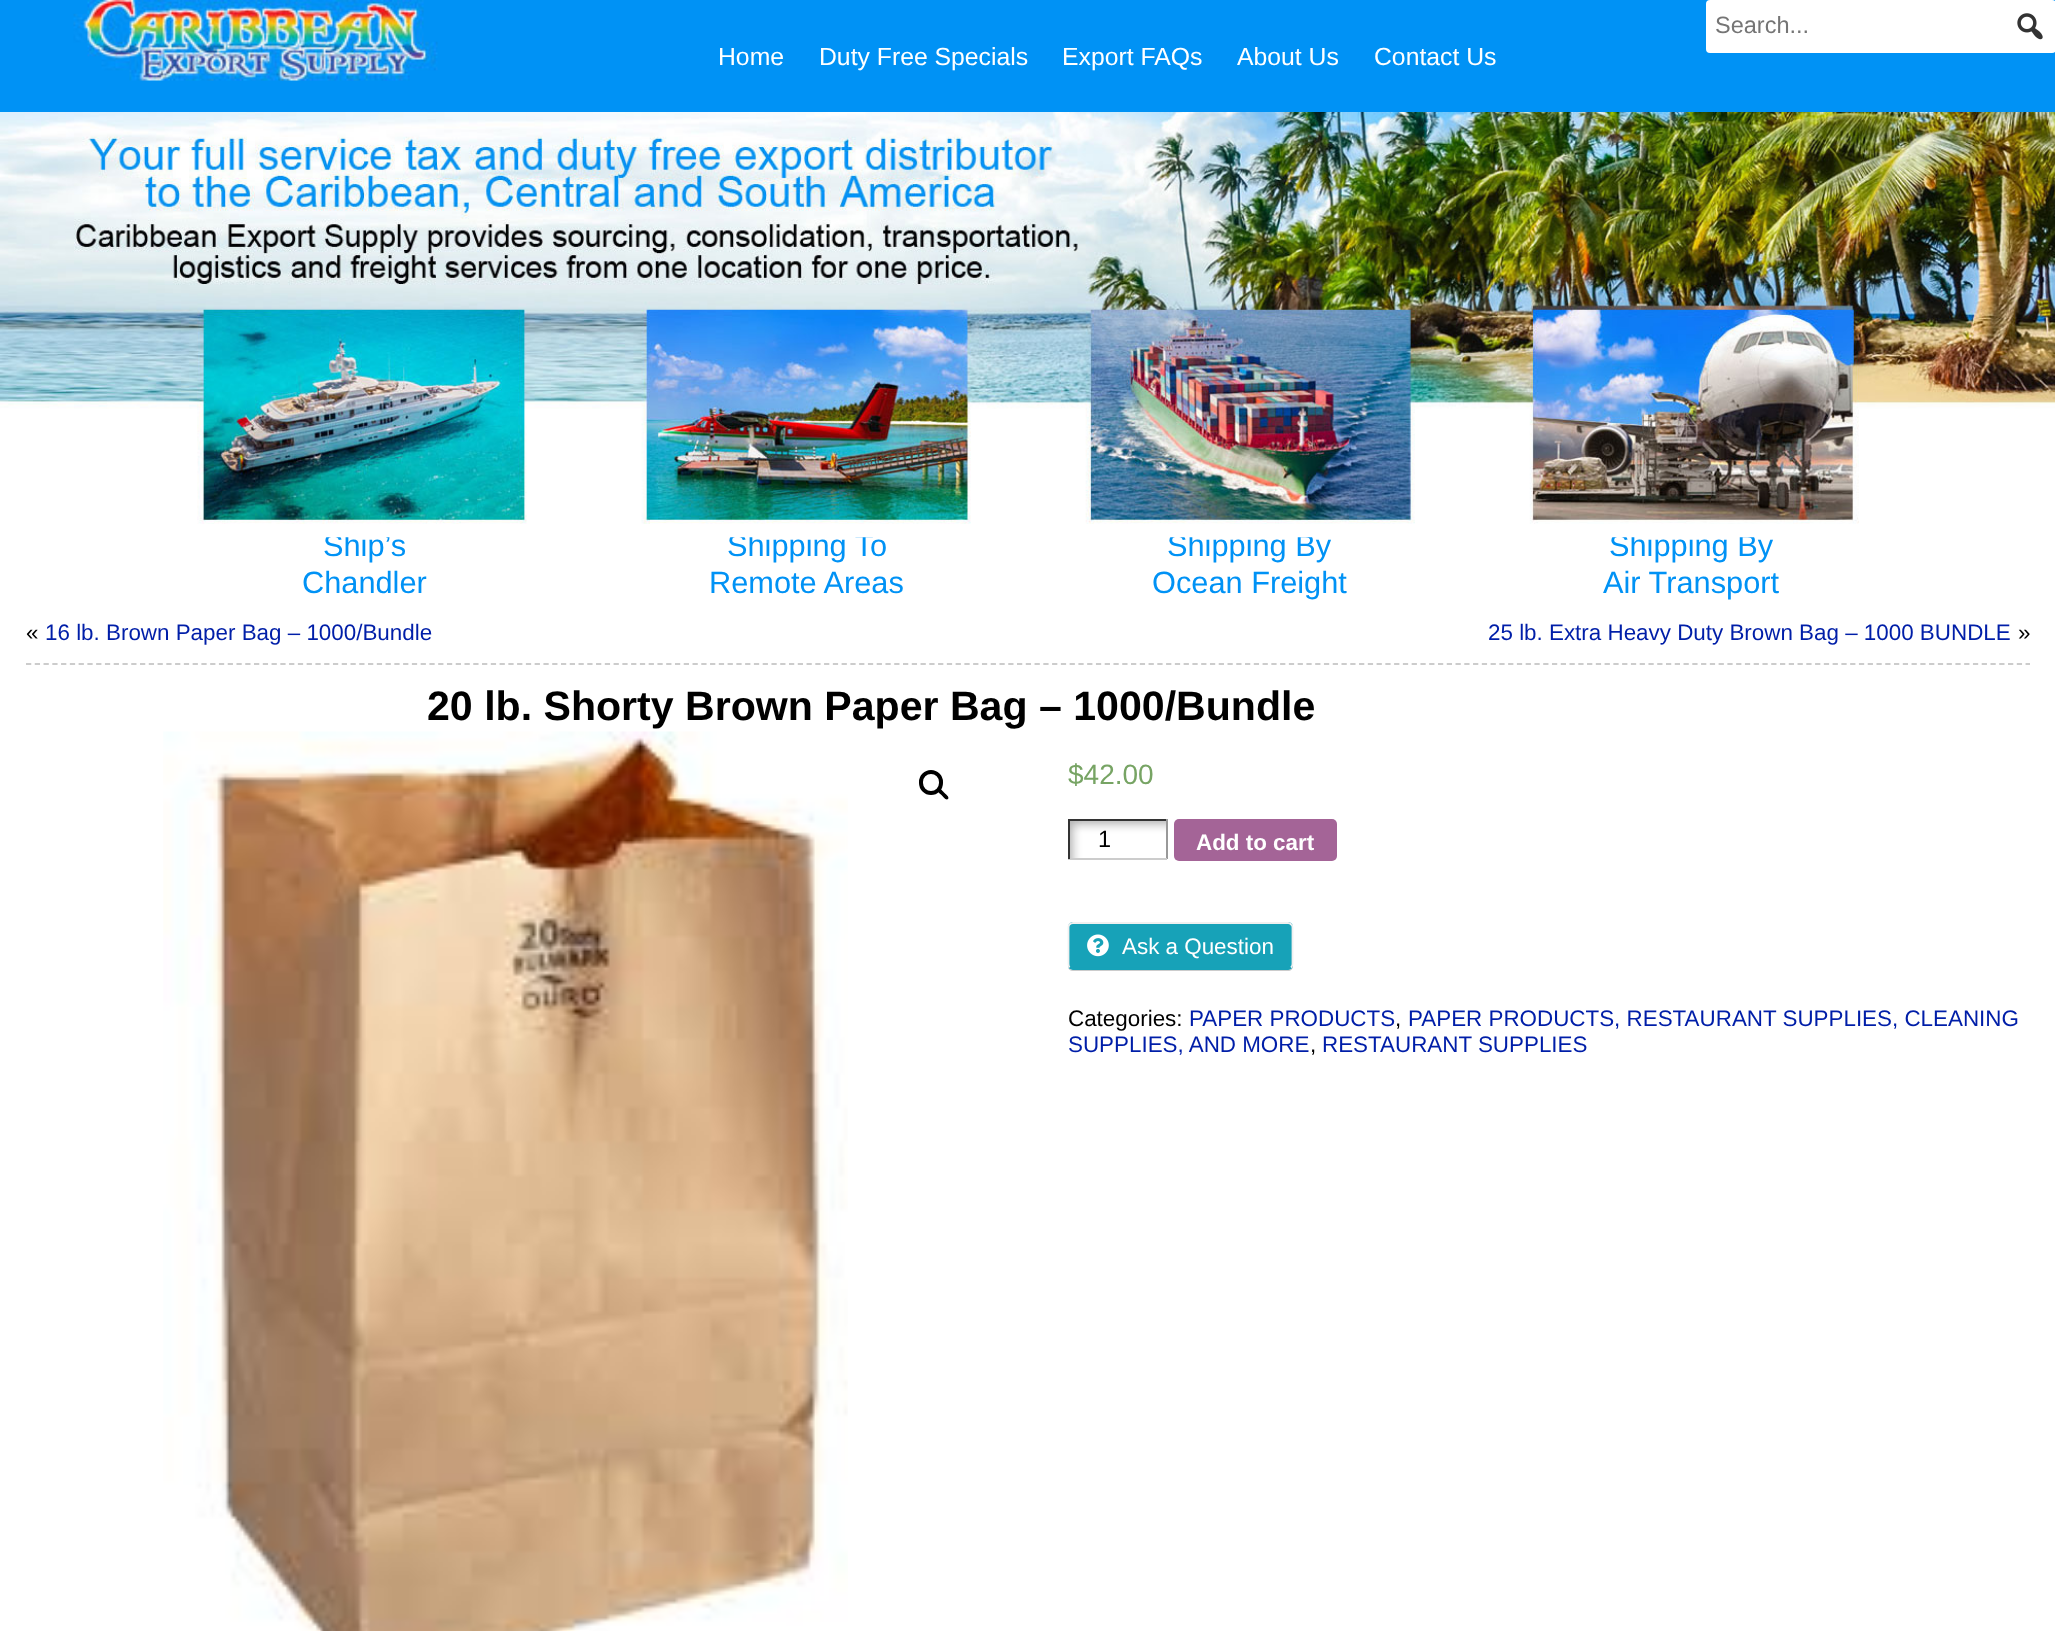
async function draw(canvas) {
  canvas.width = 2055
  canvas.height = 1631
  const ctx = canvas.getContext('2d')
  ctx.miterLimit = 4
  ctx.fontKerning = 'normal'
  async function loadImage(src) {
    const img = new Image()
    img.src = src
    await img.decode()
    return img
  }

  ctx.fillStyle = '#fff'
  ctx.fillRect(0, 0, 2055, 1631)
  ctx.fillStyle = '#0092f5'
  ctx.fillRect(0, 0, 2055, 112)
  ctx.drawImage(await loadImage('image0.png'), 73, 0, 365, 81)
  ctx.fillStyle = '#fff'
  ctx.beginPath()
  ctx.roundRect(1706, 0, 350, 53, 4)
  ctx.fill()
  ctx.font = '23.5px Liberation Sans'
  ctx.fillStyle = '#757575'
  ctx.fillText('Search...', 1715, 33)
  ctx.drawImage(await loadImage('image1.png'), 2017, 13, 26, 27)
  ctx.font = '24.75px Liberation Sans'
  ctx.fillStyle = '#fff'
  ctx.fillText('Home', 718, 65)
  ctx.fillText('Duty Free Specials', 819, 65)
  ctx.fillText('Export FAQs', 1062, 65)
  ctx.fillText('About Us', 1237, 65)
  ctx.fillText('Contact Us', 1374, 65)
  ctx.font = '30.75px Liberation Sans'
  ctx.fillStyle = '#0092f5'
  ctx.fillText('Ship’s', 323, 556)
  ctx.fillText('Shipping To', 727, 556)
  ctx.fillText('Shipping By', 1167, 556)
  ctx.fillText('Shipping By', 1609, 556)
  ctx.drawImage(await loadImage('image2.png'), 0, 112, 2055, 426)
  ctx.fillText('Chandler', 302, 593)
  ctx.fillText('Remote Areas', 709, 593)
  ctx.fillText('Ocean Freight', 1152, 593)
  ctx.fillText('Air Transport', 1603, 593)
  ctx.beginPath()
  ctx.moveTo(26, 664)
  ctx.lineTo(2030, 664)
  ctx.strokeStyle = '#ccc'
  ctx.lineWidth = 1.8
  ctx.setLineDash([5.25, 3.52])
  ctx.stroke()
  ctx.font = '22.4px Liberation Sans'
  ctx.fillStyle = '#000'
  ctx.fillText('«', 26, 640)
  ctx.fillStyle = '#001ea8'
  ctx.fillText('16 lb. Brown Paper Bag – 1000/Bundle', 45, 640)
  ctx.fillText('25 lb. Extra Heavy Duty Brown Bag – 1000 BUNDLE', 1488, 640)
  ctx.fillStyle = '#000'
  ctx.fillText('»', 2018, 640)
  ctx.font = 'bold 41.1px Liberation Sans'
  ctx.fillText('20 lb. Shorty Brown Paper Bag – 1000/Bundle', 427, 720)
  ctx.drawImage(await loadImage('image3.png'), 163, 731, 685, 900)
  ctx.beginPath()
  ctx.roundRect(921, 772, 20, 21, 10)
  ctx.strokeStyle = '#000'
  ctx.lineWidth = 4
  ctx.setLineDash([])
  ctx.stroke()
  ctx.beginPath()
  ctx.moveTo(938, 789)
  ctx.bezierCurveTo(940, 787, 943, 791.5, 944, 792.5)
  ctx.bezierCurveTo(945, 793.5, 950, 797, 948, 799)
  ctx.bezierCurveTo(946, 801, 942.5, 796, 941.5, 795)
  ctx.bezierCurveTo(940.5, 794, 936, 791, 938, 789)
  ctx.closePath()
  ctx.fill()
  ctx.font = '28px Liberation Sans'
  ctx.fillStyle = '#77a464'
  ctx.fillText('$42.00', 1068, 784)
  ctx.drawImage(await loadImage('image4.png'), 1070, 821, 98, 39)
  ctx.fillStyle = '#333'
  ctx.fillRect(1068, 819, 99, 2)
  ctx.fillStyle = '#999'
  ctx.fillRect(1166, 819, 2, 40)
  ctx.fillStyle = '#ccc'
  ctx.fillRect(1068, 858, 99, 2)
  ctx.fillStyle = '#333'
  ctx.fillRect(1068, 819, 2, 40)
  ctx.font = '23.5px Liberation Sans'
  ctx.fillStyle = '#000'
  ctx.fillText('1', 1098, 847)
  ctx.fillStyle = '#a46497'
  ctx.beginPath()
  ctx.roundRect(1174, 819, 163, 42, 5)
  ctx.fill()
  ctx.font = 'bold 22.4px Liberation Sans'
  ctx.fillStyle = '#fff'
  ctx.fillText('Add to cart', 1196, 850)
  ctx.fillStyle = '#ccc'
  ctx.beginPath()
  ctx.moveTo(1068, 967)
  ctx.bezierCurveTo(1068, 969, 1070, 971, 1073, 971)
  ctx.lineTo(1288, 971)
  ctx.bezierCurveTo(1291, 971, 1293, 969, 1293, 966)
  ctx.bezierCurveTo(1292, 968, 1290, 970, 1288, 970)
  ctx.lineTo(1073, 970)
  ctx.bezierCurveTo(1071, 970, 1069, 968, 1068, 967)
  ctx.closePath()
  ctx.fill()
  ctx.fillStyle = '#17a2b8'
  ctx.beginPath()
  ctx.roundRect(1068, 922, 225, 48, 5)
  ctx.fill()
  ctx.beginPath()
  ctx.moveTo(1291, 967.5)
  ctx.lineTo(1288.5, 968.5)
  ctx.lineTo(1108.5, 968.5)
  ctx.lineTo(1073, 968.5)
  ctx.lineTo(1069.5, 967.5)
  ctx.strokeStyle = '#17a2b8'
  ctx.lineWidth = 1.8
  ctx.stroke()
  ctx.beginPath()
  ctx.moveTo(1069.5, 967.5)
  ctx.bezierCurveTo(1069, 966.5, 1068.5, 965.5, 1068.5, 964)
  ctx.lineTo(1068.5, 927.5)
  ctx.bezierCurveTo(1068.5, 926.5, 1069, 925, 1069.5, 924.5)
  ctx.bezierCurveTo(1070.5, 923.5, 1071.5, 923, 1073, 923)
  ctx.lineTo(1288, 923)
  ctx.bezierCurveTo(1289, 923, 1290.5, 923.5, 1291, 924.5)
  ctx.bezierCurveTo(1292, 925, 1292.5, 926.5, 1292.5, 927.5)
  ctx.lineTo(1292.5, 964)
  ctx.bezierCurveTo(1292.5, 965.5, 1292, 966.5, 1291, 967.5)
  ctx.strokeStyle = '#f0f0f0'
  ctx.stroke()
  ctx.drawImage(await loadImage('image5.png'), 1087, 934, 22, 23)
  ctx.font = '22.4px Liberation Sans'
  ctx.fillStyle = '#fff'
  ctx.fillText('Ask a Question', 1122, 954)
  ctx.fillStyle = '#000'
  ctx.fillText('Categories:', 1068, 1026)
  ctx.fillStyle = '#001ea8'
  ctx.fillText('PAPER PRODUCTS', 1189, 1026)
  ctx.fillStyle = '#000'
  ctx.fillText(',', 1395, 1026)
  ctx.fillStyle = '#001ea8'
  ctx.fillText('PAPER PRODUCTS, RESTAURANT SUPPLIES, CLEANING', 1408, 1026)
  ctx.fillText('SUPPLIES, AND MORE', 1068, 1052)
  ctx.fillStyle = '#000'
  ctx.fillText(',', 1310, 1052)
  ctx.fillStyle = '#001ea8'
  ctx.fillText('RESTAURANT SUPPLIES', 1322, 1052)
}

draw(document.querySelector('canvas'))
